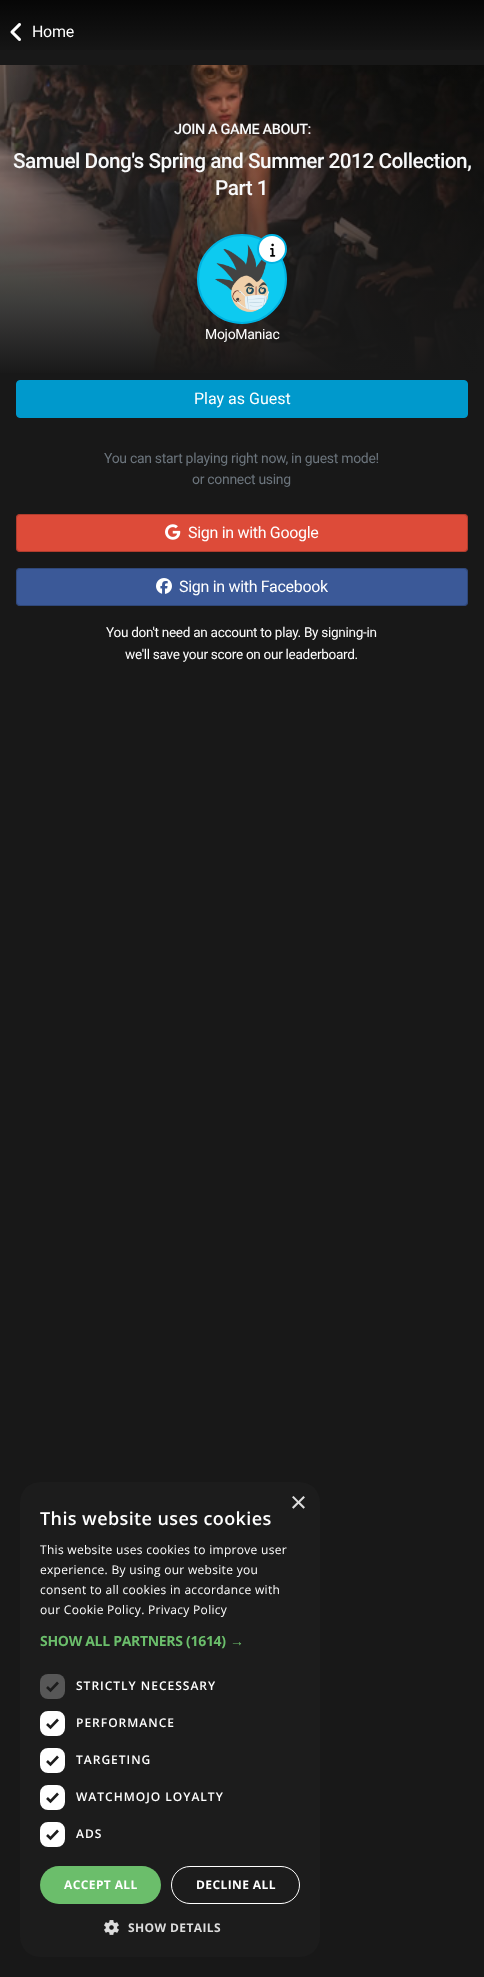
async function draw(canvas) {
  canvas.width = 484
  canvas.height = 1977
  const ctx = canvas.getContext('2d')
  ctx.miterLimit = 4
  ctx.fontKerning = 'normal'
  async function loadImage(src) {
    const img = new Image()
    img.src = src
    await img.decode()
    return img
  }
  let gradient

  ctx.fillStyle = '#181818'
  ctx.fillRect(0, 0, 484, 1977)
  gradient = ctx.createLinearGradient(242, -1, 242, 65)
  gradient.addColorStop(0, '#060606')
  gradient.addColorStop(1, '#1a1a1a')
  ctx.fillStyle = gradient
  ctx.fillRect(0, 0, 484, 50)
  ctx.drawImage(await loadImage('image0.png'), 10, 23, 11, 18)
  ctx.letterSpacing = '-0.3px'
  ctx.font = '16px Roboto'
  ctx.fillStyle = '#fff'
  ctx.fillText('Home', 32, 37)
  ctx.drawImage(await loadImage('image1.png'), 0, 65, 484, 308)
  gradient = ctx.createLinearGradient(242, 448, 242, 65)
  gradient.addColorStop(0.19, '#181818')
  gradient.addColorStop(1, '#1818184d')
  ctx.fillStyle = gradient
  ctx.fillRect(0, 65, 484, 308)
  ctx.letterSpacing = '-0.4px'
  ctx.font = '500 14.5px Roboto'
  ctx.fillStyle = '#f8f9fa'
  ctx.fillText('JOIN A GAME ABOUT:', 174, 134)
  ctx.letterSpacing = '-0.5px'
  ctx.font = '500 20.8px Roboto'
  ctx.fillText('Samuel Dong\'s Spring and Summer 2012 Collection,', 13, 168)
  ctx.fillText('Part 1', 215, 195)
  ctx.fillStyle = '#0dcaf0'
  ctx.beginPath()
  ctx.arc(242, 279, 44, 0, 2 * Math.PI)
  ctx.fill()
  ctx.strokeStyle = '#00b3e2'
  ctx.lineWidth = 2
  ctx.stroke()
  ctx.drawImage(await loadImage('image2.png'), 215, 244, 54, 69)
  ctx.fillStyle = '#fff'
  ctx.beginPath()
  ctx.arc(272, 249, 14, 0, 2 * Math.PI)
  ctx.fill()
  ctx.stroke()
  ctx.drawImage(await loadImage('image3.png'), 270, 243, 6, 14)
  ctx.letterSpacing = '-0.3px'
  ctx.font = '14px Roboto'
  ctx.fillText('MojoManiac', 205, 339)
  ctx.fillStyle = '#09c'
  ctx.beginPath()
  ctx.roundRect(16.5, 380.5, 451, 37, 3.5)
  ctx.fill()
  ctx.strokeStyle = '#09c'
  ctx.lineWidth = 1
  ctx.stroke()
  ctx.letterSpacing = '0px'
  ctx.font = '16px Roboto'
  ctx.fillStyle = '#fff'
  ctx.fillText('Play as Guest', 194, 404)
  ctx.letterSpacing = '-0.3px'
  ctx.font = '14px Roboto'
  ctx.fillStyle = '#6c757d'
  ctx.fillText('You can start playing right now, in guest mode!', 104, 463)
  ctx.fillText('or connect using', 192, 484)
  ctx.fillStyle = '#dd4b39'
  ctx.beginPath()
  ctx.roundRect(16, 514, 452, 38, 4)
  ctx.fill()
  ctx.beginPath()
  ctx.roundRect(16.5, 514.5, 451, 37, 3.5)
  ctx.strokeStyle = '#00000033'
  ctx.stroke()
  ctx.drawImage(await loadImage('image4.png'), 165, 524, 16, 16)
  ctx.font = '16px Roboto'
  ctx.fillStyle = '#fff'
  ctx.fillText('Sign in with Google', 188, 538)
  ctx.fillStyle = '#3b5998'
  ctx.beginPath()
  ctx.roundRect(16, 568, 452, 38, 4)
  ctx.fill()
  ctx.beginPath()
  ctx.roundRect(16.5, 568.5, 451, 37, 3.5)
  ctx.stroke()
  ctx.drawImage(await loadImage('image5.png'), 156, 578, 16, 16)
  ctx.fillStyle = '#fff'
  ctx.fillText('Sign in with Facebook', 179, 592)
  ctx.font = '13.6px Roboto'
  ctx.fillText('You don\'t need an account to play. By signing-in', 106, 637)
  ctx.fillText('we\'ll save your score on our leaderboard.', 125, 659)
  ctx.fillStyle = '#1c1c1c'
  ctx.beginPath()
  ctx.roundRect(20, 1482, 300, 475, 20)
  ctx.fill()
  ctx.letterSpacing = '0px'
  ctx.font = '29px Liberation Sans'
  ctx.fillStyle = '#ddd'
  ctx.fillText('×', 290, 1512)
  ctx.letterSpacing = '0.4px'
  ctx.font = '600 18px Open Sans'
  ctx.fillStyle = '#fff'
  ctx.fillText('This website uses cookies', 40, 1525)
  ctx.letterSpacing = '0.3px'
  ctx.font = '12px Open Sans'
  ctx.fillText('This website uses cookies to improve user', 40, 1554)
  ctx.fillText('experience. By using our website you', 40, 1574)
  ctx.fillText('consent to all cookies in accordance with', 40, 1594)
  ctx.fillText('our Cookie Policy. Privacy Policy', 40, 1614)
  ctx.letterSpacing = '-0.3px'
  ctx.font = 'bold 14px Open Sans'
  ctx.fillStyle = '#6bbe6b'
  ctx.fillText('SHOW ALL PARTNERS (1614)', 40, 1646)
  ctx.font = 'bold 14px Liberation Sans'
  ctx.fillText('→', 230, 1646)
  ctx.fillStyle = '#575757'
  ctx.beginPath()
  ctx.roundRect(40, 1674, 25, 25, 8)
  ctx.fill()
  ctx.beginPath()
  ctx.moveTo(47, 1687)
  ctx.lineTo(50.5, 1690.5)
  ctx.lineTo(58, 1682.5)
  ctx.strokeStyle = '#1c1c1c'
  ctx.lineWidth = 2.6
  ctx.stroke()
  ctx.letterSpacing = '1px'
  ctx.font = '600 12px Open Sans'
  ctx.fillStyle = '#fff'
  ctx.fillText('STRICTLY NECESSARY', 76, 1690)
  ctx.beginPath()
  ctx.roundRect(41, 1712, 23, 23, 7)
  ctx.fill()
  ctx.strokeStyle = '#fff'
  ctx.lineWidth = 2
  ctx.stroke()
  ctx.beginPath()
  ctx.moveTo(47, 1724)
  ctx.lineTo(50.5, 1727.5)
  ctx.lineTo(58, 1719.5)
  ctx.strokeStyle = '#1c1c1c'
  ctx.lineWidth = 2.6
  ctx.stroke()
  ctx.fillText('PERFORMANCE', 76, 1727)
  ctx.beginPath()
  ctx.roundRect(41, 1749, 23, 23, 7)
  ctx.fill()
  ctx.strokeStyle = '#fff'
  ctx.lineWidth = 2
  ctx.stroke()
  ctx.beginPath()
  ctx.moveTo(47, 1761)
  ctx.lineTo(50.5, 1764.5)
  ctx.lineTo(58, 1756.5)
  ctx.strokeStyle = '#1c1c1c'
  ctx.lineWidth = 2.6
  ctx.stroke()
  ctx.fillText('TARGETING', 76, 1764)
  ctx.beginPath()
  ctx.roundRect(41, 1786, 23, 23, 7)
  ctx.fill()
  ctx.strokeStyle = '#fff'
  ctx.lineWidth = 2
  ctx.stroke()
  ctx.beginPath()
  ctx.moveTo(47, 1798)
  ctx.lineTo(50.5, 1801.5)
  ctx.lineTo(58, 1793.5)
  ctx.strokeStyle = '#1c1c1c'
  ctx.lineWidth = 2.6
  ctx.stroke()
  ctx.fillText('WATCHMOJO LOYALTY', 76, 1801)
  ctx.beginPath()
  ctx.roundRect(41, 1823, 23, 23, 7)
  ctx.fill()
  ctx.strokeStyle = '#fff'
  ctx.lineWidth = 2
  ctx.stroke()
  ctx.beginPath()
  ctx.moveTo(47, 1835)
  ctx.lineTo(50.5, 1838.5)
  ctx.lineTo(58, 1830.5)
  ctx.strokeStyle = '#1c1c1c'
  ctx.lineWidth = 2.6
  ctx.stroke()
  ctx.fillText('ADS', 76, 1838)
  ctx.fillStyle = '#6bbe6b'
  ctx.beginPath()
  ctx.roundRect(40, 1866, 121, 38, 19)
  ctx.fill()
  ctx.letterSpacing = '0.4px'
  ctx.font = 'bold 12px Open Sans'
  ctx.fillStyle = '#fff'
  ctx.fillText('ACCEPT ALL', 64, 1889)
  ctx.beginPath()
  ctx.roundRect(171.5, 1866.5, 128, 37, 18.5)
  ctx.strokeStyle = '#fff'
  ctx.lineWidth = 1
  ctx.stroke()
  ctx.fillText('DECLINE ALL', 196, 1889)
  ctx.drawImage(await loadImage('image6.png'), 104, 1920, 15, 15)
  ctx.fillStyle = '#ddd'
  ctx.fillText('SHOW DETAILS', 128, 1932)
}

draw(document.querySelector('canvas'))
